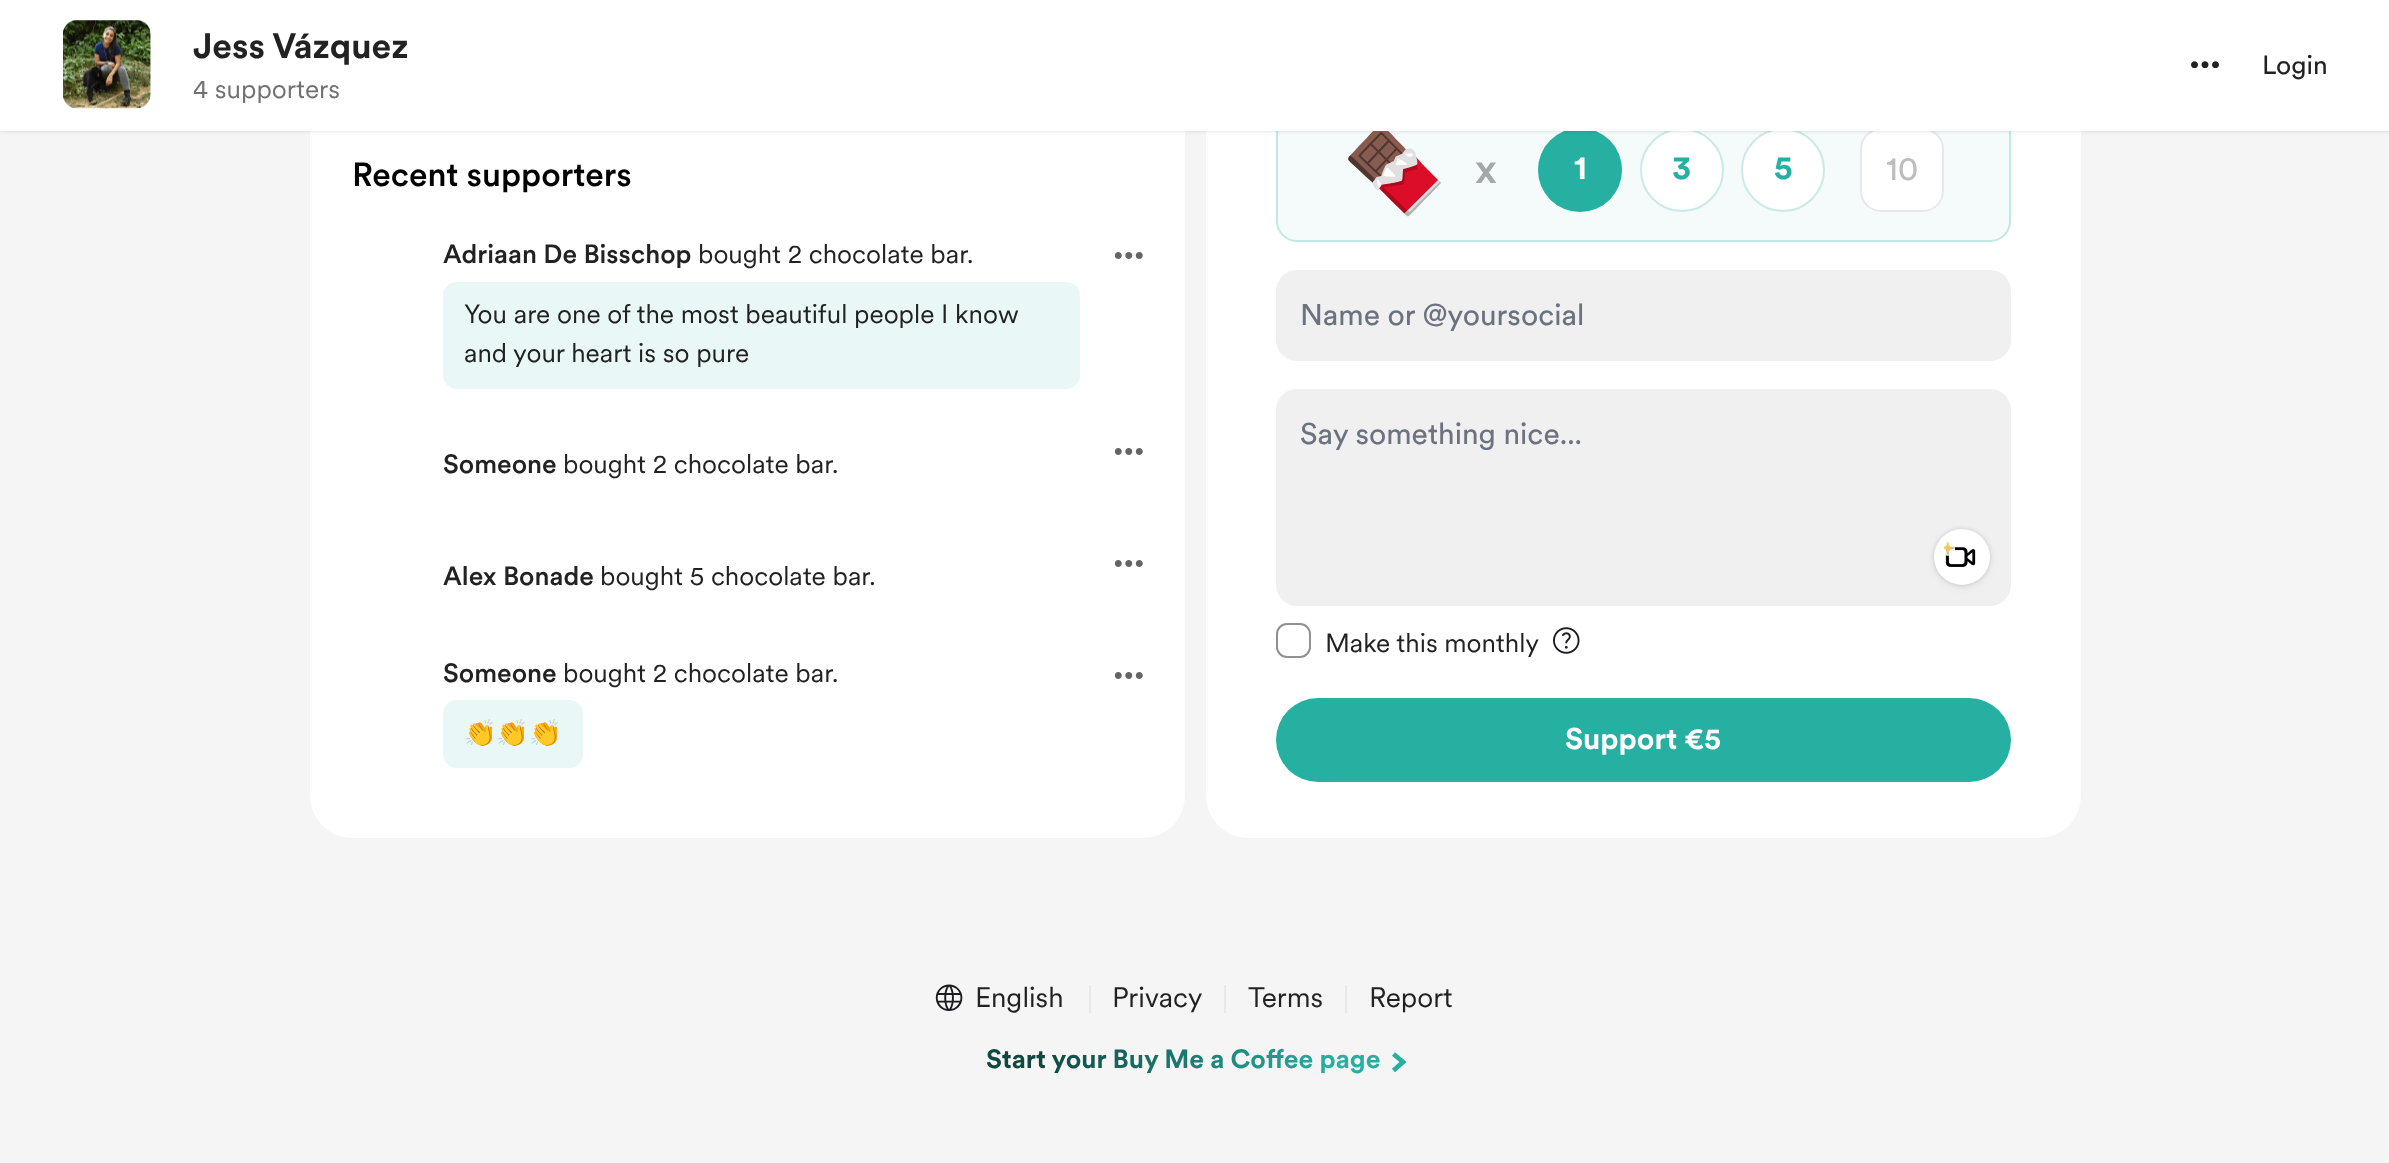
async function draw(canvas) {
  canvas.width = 2389
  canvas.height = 1163
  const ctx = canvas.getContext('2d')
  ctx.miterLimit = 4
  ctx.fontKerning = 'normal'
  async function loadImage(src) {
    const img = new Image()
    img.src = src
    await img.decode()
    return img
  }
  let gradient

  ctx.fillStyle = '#f5f5f5'
  ctx.fillRect(0, 0, 2389, 1163)
  ctx.fillStyle = '#fff'
  ctx.beginPath()
  ctx.roundRect(310, -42, 875, 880, 42)
  ctx.fill()
  ctx.beginPath()
  ctx.roundRect(1206, -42, 875, 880, 42)
  ctx.fill()
  ctx.fillStyle = '#f5fbfb'
  ctx.beginPath()
  ctx.roundRect(1276, 98, 735, 144, 21)
  ctx.fill()
  ctx.beginPath()
  ctx.roundRect(1277, 99, 733, 142, 20)
  ctx.strokeStyle = '#26b0a140'
  ctx.lineWidth = 2
  ctx.stroke()
  ctx.fillStyle = '#26b0a1'
  ctx.beginPath()
  ctx.arc(1580, 170, 42, 0, 2 * Math.PI)
  ctx.fill()
  ctx.beginPath()
  ctx.arc(1580, 170, 41, 0, 2 * Math.PI)
  ctx.stroke()
  ctx.fillStyle = '#fff'
  ctx.beginPath()
  ctx.arc(1682, 170, 42, 0, 2 * Math.PI)
  ctx.fill()
  ctx.beginPath()
  ctx.arc(1682, 170, 41, 0, 2 * Math.PI)
  ctx.stroke()
  ctx.beginPath()
  ctx.arc(1783, 170, 42, 0, 2 * Math.PI)
  ctx.fill()
  ctx.beginPath()
  ctx.arc(1783, 170, 41, 0, 2 * Math.PI)
  ctx.stroke()
  ctx.beginPath()
  ctx.roundRect(1860, 128, 84, 84, 21)
  ctx.fill()
  ctx.beginPath()
  ctx.roundRect(1861, 129, 82, 82, 20)
  ctx.strokeStyle = '#2222221a'
  ctx.stroke()
  ctx.fillStyle = '#0000000f'
  ctx.filter = 'blur(1px)'
  ctx.beginPath()
  ctx.rect(0, 2, 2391, 131)
  ctx.fill()
  ctx.filter = 'none'
  ctx.font = '84px Noto Color Emoji'
  ctx.fillStyle = '#000'
  ctx.fillText('🍫', 1342, 199)
  ctx.fillStyle = '#fff'
  ctx.fillRect(0, 0, 2389, 131)
  ctx.drawImage(await loadImage('image0.png'), 63, 20, 88, 89)
  ctx.drawImage(await loadImage('image1.png'), 63, 20, 88, 89)
  ctx.font = 'bold 35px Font'
  ctx.fillStyle = '#222'
  ctx.fillText('Jess Vázquez', 193, 58)
  ctx.font = '26.25px "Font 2"'
  ctx.fillStyle = '#717171'
  ctx.fillText('4 supporters', 193, 98)
  ctx.drawImage(await loadImage('image2.png'), 2191, 61, 28, 7)
  ctx.font = '26.25px Font'
  ctx.fillStyle = '#222'
  ctx.fillText('Login', 2262, 74)
  ctx.font = '500 33.25px Font'
  ctx.fillStyle = '#000'
  ctx.fillText('Recent supporters', 352, 186)
  ctx.font = '500 26.25px Font'
  ctx.fillStyle = '#222'
  ctx.fillText('Adriaan De Bisschop', 443, 263)
  ctx.font = '26.25px "Font 2"'
  ctx.fillText('bought 2 chocolate bar.', 698, 263)
  ctx.fillStyle = '#e9f7f6'
  ctx.beginPath()
  ctx.roundRect(443, 282, 637, 107, 14)
  ctx.fill()
  ctx.fillStyle = '#222'
  ctx.fillText('You are one of the most beautiful people I know', 464, 323)
  ctx.fillText('and your heart is so pure', 464, 362)
  ctx.drawImage(await loadImage('image3.png'), 1115, 252, 28, 7)
  ctx.drawImage(await loadImage('image3.png'), 1115, 448, 28, 7)
  ctx.font = '500 26.25px Font'
  ctx.fillText('Someone', 443, 473)
  ctx.font = '26.25px "Font 2"'
  ctx.fillText('bought 2 chocolate bar.', 563, 473)
  ctx.drawImage(await loadImage('image3.png'), 1115, 560, 28, 7)
  ctx.font = '500 26.25px Font'
  ctx.fillText('Alex Bonade', 443, 585)
  ctx.font = '26.25px "Font 2"'
  ctx.fillText('bought 5 chocolate bar.', 600, 585)
  ctx.font = '500 26.25px Font'
  ctx.fillText('Someone', 443, 682)
  ctx.font = '26.25px "Font 2"'
  ctx.fillText('bought 2 chocolate bar.', 563, 682)
  ctx.fillStyle = '#e9f7f6'
  ctx.beginPath()
  ctx.roundRect(443, 700, 140, 68, 14)
  ctx.fill()
  ctx.font = '26.25px Noto Color Emoji'
  ctx.fillStyle = '#222'
  ctx.fillText('👏👏👏', 464, 742)
  ctx.drawImage(await loadImage('image3.png'), 1115, 672, 28, 7)
  ctx.font = '500 42px Font'
  ctx.fillStyle = '#a6a8a8'
  ctx.fillText('x', 1475, 183)
  ctx.font = 'bold 33.25px Font'
  ctx.fillStyle = '#fff'
  ctx.fillText('1', 1574, 179)
  ctx.fillStyle = '#26b0a1'
  ctx.fillText('3', 1672, 179)
  ctx.fillText('5', 1774, 179)
  ctx.font = '33.25px Font'
  ctx.fillStyle = '#bdbdbd'
  ctx.fillText('10', 1886, 180)
  ctx.fillStyle = '#f0f0f0'
  ctx.beginPath()
  ctx.roundRect(1276, 270, 735, 91, 21)
  ctx.fill()
  ctx.font = '29.75px Font'
  ctx.fillStyle = '#6b7280'
  ctx.fillText('Name or @yoursocial', 1300, 325)
  ctx.fillStyle = '#f0f0f0'
  ctx.beginPath()
  ctx.roundRect(1276, 389, 735, 217, 21)
  ctx.fill()
  ctx.fillStyle = '#6b7280'
  ctx.fillText('Say something nice...', 1300, 444)
  ctx.fillStyle = '#0000000d'
  ctx.filter = 'blur(4.5px)'
  ctx.beginPath()
  ctx.roundRect(1934, 532, 56, 56, 28)
  ctx.fill()
  ctx.filter = 'none'
  ctx.fillStyle = '#00000026'
  ctx.filter = 'blur(2px)'
  ctx.beginPath()
  ctx.roundRect(1934, 529, 56, 56, 28)
  ctx.fill()
  ctx.filter = 'none'
  ctx.fillStyle = '#fff'
  ctx.beginPath()
  ctx.arc(1962, 557, 28, 0, 2 * Math.PI)
  ctx.fill()
  ctx.drawImage(await loadImage('image5.png'), 1945, 547, 31, 20)
  ctx.drawImage(await loadImage('image4.png'), 1944, 542, 11, 14)
  ctx.beginPath()
  ctx.roundRect(1277, 624, 33, 33, 10)
  ctx.strokeStyle = '#919191'
  ctx.stroke()
  ctx.font = '26.25px "Font 2"'
  ctx.fillStyle = '#222'
  ctx.fillText('Make this monthly', 1325, 652)
  ctx.drawImage(await loadImage('image6.png'), 1553, 627, 27, 27)
  ctx.fillStyle = '#26b0a1'
  ctx.beginPath()
  ctx.roundRect(1276, 698, 735, 84, 42)
  ctx.fill()
  ctx.font = 'bold 29.75px Font'
  ctx.fillStyle = '#fff'
  ctx.fillText('Support €5', 1565, 749)
  ctx.drawImage(await loadImage('image7.png'), 935, 984, 28, 27)
  ctx.font = '28px "Font 2"'
  ctx.fillStyle = '#222'
  ctx.fillText('English', 975, 1007)
  ctx.fillStyle = '#e8e8e8'
  ctx.fillRect(1089, 985, 2, 28)
  ctx.fillStyle = '#222'
  ctx.fillText('Privacy', 1112, 1007)
  ctx.fillStyle = '#e8e8e8'
  ctx.fillRect(1224, 985, 2, 28)
  ctx.fillStyle = '#222'
  ctx.fillText('Terms', 1248, 1007)
  ctx.fillStyle = '#e8e8e8'
  ctx.fillRect(1345, 985, 2, 28)
  ctx.fillStyle = '#222'
  ctx.fillText('Report', 1369, 1007)
  ctx.font = 'bold 26.25px Font'
  gradient = ctx.createLinearGradient(1011, 982, 1380, 1138)
  gradient.addColorStop(0.14, '#0f4741')
  gradient.addColorStop(0.82, '#26b0a1')
  ctx.fillStyle = gradient
  ctx.fillText('Start your Buy Me a Coffee page', 986, 1068)
  ctx.beginPath()
  ctx.moveTo(1393.5, 1054)
  ctx.lineTo(1403, 1062)
  ctx.lineTo(1393.5, 1070.5)
  ctx.strokeStyle = '#26b0a1'
  ctx.lineWidth = 4.7
  ctx.stroke()
}

draw(document.querySelector('canvas'))
